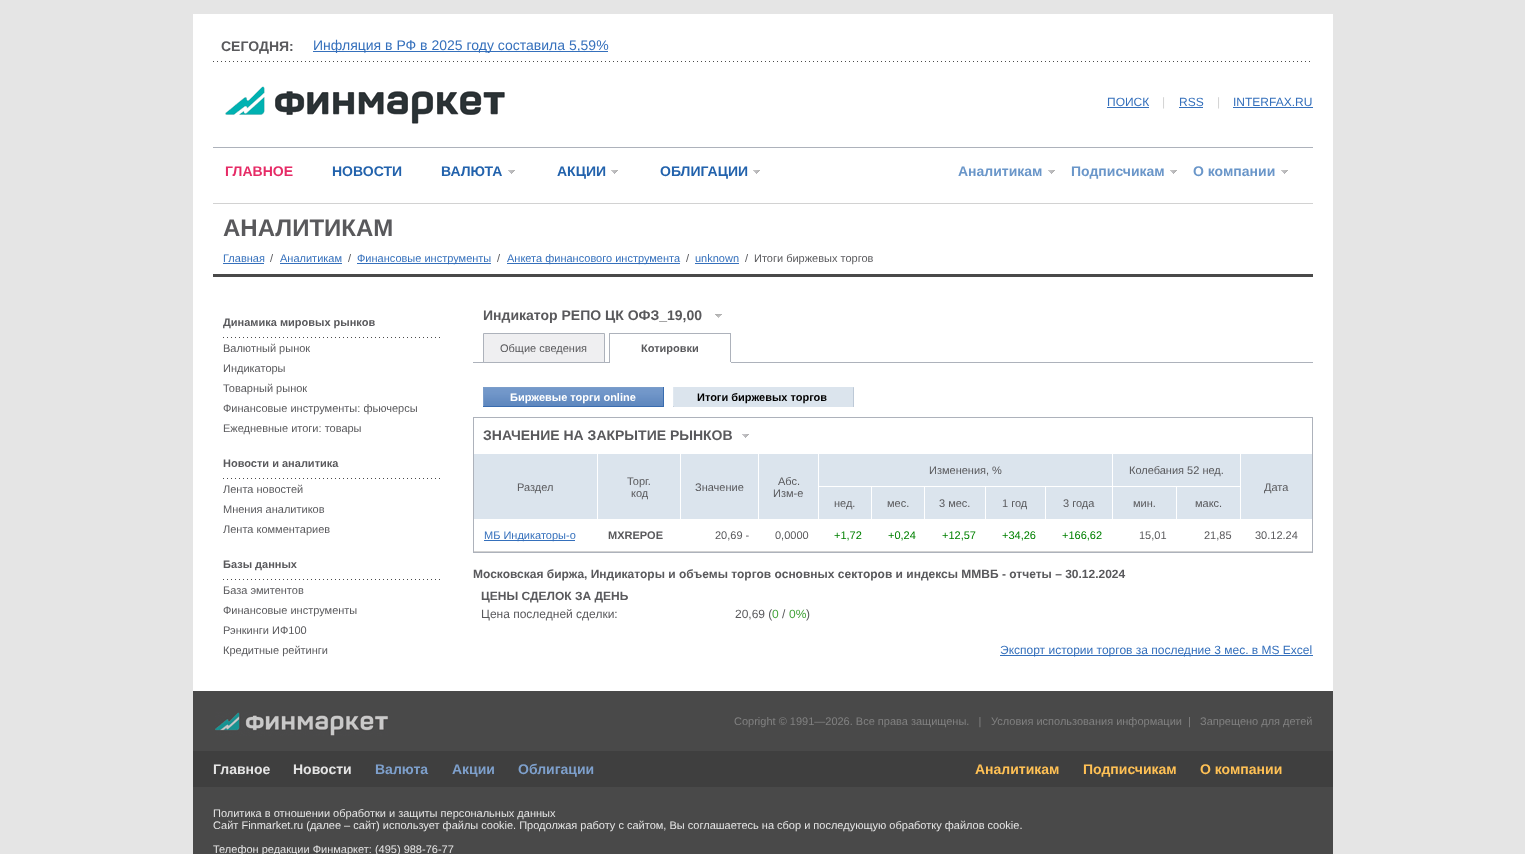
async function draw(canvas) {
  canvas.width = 1525
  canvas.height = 854
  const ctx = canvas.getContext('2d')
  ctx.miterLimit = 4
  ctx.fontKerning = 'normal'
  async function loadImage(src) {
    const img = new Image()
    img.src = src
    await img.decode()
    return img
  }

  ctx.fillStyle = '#e5e5e5'
  ctx.fillRect(0, 0, 1525, 854)
  ctx.fillStyle = '#fff'
  ctx.fillRect(193, 14, 1140, 677)
  ctx.font = 'bold 14px Liberation Sans'
  ctx.fillStyle = '#59595c'
  ctx.fillText('СЕГОДНЯ:', 221, 51)
  ctx.fillStyle = '#3570bc'
  ctx.fillRect(313, 51, 295, 1)
  ctx.font = '14px Liberation Sans'
  ctx.fillText('Инфляция в РФ в 2025 году составила 5,59%', 313, 50)
  ctx.drawImage(await loadImage('image0.png'), 213, 61, 1097, 1)
  ctx.drawImage(await loadImage('image1.png'), 225, 86, 280, 38)
  ctx.font = '12px Liberation Sans'
  ctx.fillText('ПОИСК', 1107, 106)
  ctx.fillRect(1107, 107, 42, 1)
  ctx.fillStyle = '#d2d2d2'
  ctx.fillText('|', 1162, 106)
  ctx.fillStyle = '#3570bc'
  ctx.fillText('RSS', 1179, 106)
  ctx.fillRect(1179, 107, 24, 1)
  ctx.fillStyle = '#d2d2d2'
  ctx.fillText('|', 1217, 106)
  ctx.fillStyle = '#3570bc'
  ctx.fillText('INTERFAX.RU', 1233, 106)
  ctx.fillRect(1233, 107, 80, 1)
  ctx.fillStyle = '#adb2bb'
  ctx.fillRect(213, 147, 1100, 1)
  ctx.font = 'bold 14px Liberation Sans'
  ctx.fillStyle = '#e62b66'
  ctx.fillText('ГЛАВНОЕ', 225, 176)
  ctx.fillStyle = '#2262ac'
  ctx.fillText('НОВОСТИ', 332, 176)
  ctx.fillText('ВАЛЮТА', 441, 176)
  ctx.drawImage(await loadImage('image2.png'), 508, 170, 7, 4)
  ctx.fillText('АКЦИИ', 557, 176)
  ctx.drawImage(await loadImage('image2.png'), 611, 170, 7, 4)
  ctx.fillText('ОБЛИГАЦИИ', 660, 176)
  ctx.drawImage(await loadImage('image2.png'), 753, 170, 7, 4)
  ctx.fillStyle = '#6a96c9'
  ctx.fillText('Аналитикам', 958, 176)
  ctx.drawImage(await loadImage('image2.png'), 1048, 170, 7, 4)
  ctx.fillText('Подписчикам', 1071, 176)
  ctx.drawImage(await loadImage('image2.png'), 1170, 170, 7, 4)
  ctx.fillText('О компании', 1193, 176)
  ctx.drawImage(await loadImage('image2.png'), 1281, 170, 7, 4)
  ctx.fillStyle = '#d2d2d2'
  ctx.fillRect(213, 203, 1100, 1)
  ctx.font = 'bold 24px Liberation Sans'
  ctx.fillStyle = '#59595c'
  ctx.fillText('АНАЛИТИКАМ', 223, 236)
  ctx.font = '11px Liberation Sans'
  ctx.fillStyle = '#3570bc'
  ctx.fillText('Главная', 223, 262)
  ctx.fillRect(223, 263, 41, 1)
  ctx.fillStyle = '#59595c'
  ctx.fillText('/', 270, 262)
  ctx.fillStyle = '#3570bc'
  ctx.fillText('Аналитикам', 280, 262)
  ctx.fillRect(280, 263, 62, 1)
  ctx.fillStyle = '#59595c'
  ctx.fillText('/', 348, 262)
  ctx.fillStyle = '#3570bc'
  ctx.fillRect(357, 263, 134, 1)
  ctx.fillText('Финансовые инструменты', 357, 262)
  ctx.fillStyle = '#59595c'
  ctx.fillText('/', 497, 262)
  ctx.fillStyle = '#3570bc'
  ctx.fillRect(507, 263, 173, 1)
  ctx.fillText('Анкета финансового инструмента', 507, 262)
  ctx.fillStyle = '#59595c'
  ctx.fillText('/', 686, 262)
  ctx.fillStyle = '#3570bc'
  ctx.fillText('unknown', 695, 262)
  ctx.fillRect(695, 263, 44, 1)
  ctx.fillStyle = '#59595c'
  ctx.fillText('/', 745, 262)
  ctx.fillText('Итоги биржевых торгов', 754, 262)
  ctx.fillStyle = '#494949'
  ctx.fillRect(213, 274, 1100, 3)
  ctx.font = 'bold 11px Liberation Sans'
  ctx.fillStyle = '#59595c'
  ctx.fillText('Динамика мировых рынков', 223, 326)
  ctx.drawImage(await loadImage('image3.png'), 223, 337, 217, 1)
  ctx.font = '11px Liberation Sans'
  ctx.fillText('Валютный рынок', 223, 352)
  ctx.fillText('Индикаторы', 223, 372)
  ctx.fillText('Товарный рынок', 223, 392)
  ctx.fillText('Финансовые инструменты: фьючерсы', 223, 412)
  ctx.fillText('Ежедневные итоги: товары', 223, 432)
  ctx.font = 'bold 11px Liberation Sans'
  ctx.fillText('Новости и аналитика', 223, 467)
  ctx.drawImage(await loadImage('image3.png'), 223, 478, 217, 1)
  ctx.font = '11px Liberation Sans'
  ctx.fillText('Лента новостей', 223, 493)
  ctx.fillText('Мнения аналитиков', 223, 513)
  ctx.fillText('Лента комментариев', 223, 533)
  ctx.font = 'bold 11px Liberation Sans'
  ctx.fillText('Базы данных', 223, 568)
  ctx.drawImage(await loadImage('image3.png'), 223, 579, 217, 1)
  ctx.font = '11px Liberation Sans'
  ctx.fillText('База эмитентов', 223, 594)
  ctx.fillText('Финансовые инструменты', 223, 614)
  ctx.fillText('Рэнкинги ИФ100', 223, 634)
  ctx.fillText('Кредитные рейтинги', 223, 654)
  ctx.font = 'bold 14px Liberation Sans'
  ctx.fillText('Индикатор РЕПО ЦК ОФЗ_19,00', 483, 320)
  ctx.drawImage(await loadImage('image4.png'), 715, 314, 7, 4)
  ctx.fillStyle = '#adb2bb'
  ctx.fillRect(473, 362, 840, 1)
  ctx.fillStyle = '#efeff1'
  ctx.beginPath()
  ctx.rect(483.5, 333.5, 121, 29)
  ctx.fill()
  ctx.strokeStyle = '#adb2bb'
  ctx.stroke()
  ctx.font = '11px Liberation Sans'
  ctx.fillStyle = '#59595c'
  ctx.fillText('Общие сведения', 500, 352)
  ctx.fillStyle = '#adb2bb'
  ctx.fillRect(609, 333, 122, 1)
  ctx.fillRect(730, 333, 1, 30)
  ctx.fillStyle = '#fff'
  ctx.fillRect(609, 362, 122, 1)
  ctx.fillStyle = '#adb2bb'
  ctx.fillRect(609, 333, 1, 30)
  ctx.font = 'bold 11px Liberation Sans'
  ctx.fillStyle = '#59595c'
  ctx.fillText('Котировки', 641, 352)
  ctx.drawImage(await loadImage('image5.png'), 483, 387, 180, 20)
  ctx.fillStyle = '#7b9dca'
  ctx.fillRect(483, 388, 1, 18)
  ctx.fillStyle = '#fff'
  ctx.fillText('Биржевые торги online', 510, 401)
  ctx.fillStyle = '#396caf'
  ctx.fillRect(663, 387, 1, 20)
  ctx.fillStyle = '#dbe4ed'
  ctx.fillRect(674, 387, 179, 20)
  ctx.drawImage(await loadImage('image6.png'), 673, 387, 1, 20)
  ctx.fillStyle = '#000'
  ctx.fillText('Итоги биржевых торгов', 697, 401)
  ctx.drawImage(await loadImage('image7.png'), 853, 387, 1, 20)
  ctx.strokeRect(473.5, 417.5, 839, 135)
  ctx.font = 'bold 14px Liberation Sans'
  ctx.fillStyle = '#59595c'
  ctx.fillText('ЗНАЧЕНИЕ НА ЗАКРЫТИЕ РЫНКОВ', 483, 440)
  ctx.drawImage(await loadImage('image8.png'), 742, 434, 7, 4)
  ctx.fillStyle = '#dbe4ed'
  ctx.fillRect(819, 454, 293, 32)
  ctx.font = '11px Liberation Sans'
  ctx.fillStyle = '#59595c'
  ctx.fillText('Изменения, %', 929, 474)
  ctx.fillStyle = '#dbe4ed'
  ctx.fillRect(1113, 454, 127, 32)
  ctx.fillStyle = '#59595c'
  ctx.fillText('Колебания 52 нед.', 1129, 474)
  ctx.fillStyle = '#dbe4ed'
  ctx.fillRect(474, 454, 123, 65)
  ctx.fillStyle = '#59595c'
  ctx.fillText('Раздел', 517, 491)
  ctx.fillStyle = '#dbe4ed'
  ctx.fillRect(598, 454, 82, 65)
  ctx.fillStyle = '#59595c'
  ctx.fillText('Торг.', 627, 485)
  ctx.fillText('код', 631, 497)
  ctx.fillStyle = '#dbe4ed'
  ctx.fillRect(681, 454, 77, 65)
  ctx.fillStyle = '#59595c'
  ctx.fillText('Значение', 695, 491)
  ctx.fillStyle = '#dbe4ed'
  ctx.fillRect(759, 454, 59, 65)
  ctx.fillStyle = '#59595c'
  ctx.fillText('Абс.', 778, 485)
  ctx.fillText('Изм-е', 773, 497)
  ctx.fillStyle = '#dbe4ed'
  ctx.fillRect(1241, 454, 71, 65)
  ctx.fillStyle = '#59595c'
  ctx.fillText('Дата', 1264, 491)
  ctx.fillStyle = '#dbe4ed'
  ctx.fillRect(819, 487, 52, 32)
  ctx.fillStyle = '#59595c'
  ctx.fillText('нед.', 834, 507)
  ctx.fillStyle = '#dbe4ed'
  ctx.fillRect(872, 487, 52, 32)
  ctx.fillStyle = '#59595c'
  ctx.fillText('мес.', 887, 507)
  ctx.fillStyle = '#dbe4ed'
  ctx.fillRect(925, 487, 60, 32)
  ctx.fillStyle = '#59595c'
  ctx.fillText('3 мес.', 939, 507)
  ctx.fillStyle = '#dbe4ed'
  ctx.fillRect(986, 487, 59, 32)
  ctx.fillStyle = '#59595c'
  ctx.fillText('1 год', 1002, 507)
  ctx.fillStyle = '#dbe4ed'
  ctx.fillRect(1046, 487, 66, 32)
  ctx.fillStyle = '#59595c'
  ctx.fillText('3 года', 1063, 507)
  ctx.fillStyle = '#dbe4ed'
  ctx.fillRect(1113, 487, 63, 32)
  ctx.fillStyle = '#59595c'
  ctx.fillText('мин.', 1133, 507)
  ctx.fillStyle = '#dbe4ed'
  ctx.fillRect(1177, 487, 63, 32)
  ctx.fillStyle = '#59595c'
  ctx.fillText('макс.', 1195, 507)
  ctx.fillStyle = '#d2d2d2'
  ctx.fillRect(474, 551, 838, 1)
  ctx.fillStyle = '#3570bc'
  ctx.fillRect(484, 540, 91, 1)
  ctx.fillText('МБ Индикаторы-о', 484, 539)
  ctx.font = 'bold 11px Liberation Sans'
  ctx.fillStyle = '#59595c'
  ctx.fillText('MXREPOE', 608, 539)
  ctx.font = '11px Liberation Sans'
  ctx.fillText('20,69 -', 715, 539)
  ctx.fillText('0,0000', 775, 539)
  ctx.fillStyle = '#008000'
  ctx.fillText('+1,72', 834, 539)
  ctx.fillText('+0,24', 888, 539)
  ctx.fillText('+12,57', 942, 539)
  ctx.fillText('+34,26', 1002, 539)
  ctx.fillText('+166,62', 1062, 539)
  ctx.fillStyle = '#59595c'
  ctx.fillText('15,01', 1139, 539)
  ctx.fillText('21,85', 1204, 539)
  ctx.fillText('30.12.24', 1255, 539)
  ctx.font = 'bold 12px Liberation Sans'
  ctx.fillText('Московская биржа, Индикаторы и объемы торгов основных секторов и индексы ММВБ - отчеты – 30.12.2024', 473, 578)
  ctx.fillText('ЦЕНЫ СДЕЛОК ЗА ДЕНЬ', 481, 600)
  ctx.font = '12px Liberation Sans'
  ctx.fillText('Цена последней сделки:', 481, 618)
  ctx.fillText('20,69 (', 735, 618)
  ctx.fillStyle = '#43a33a'
  ctx.fillText('0', 772, 618)
  ctx.fillStyle = '#59595c'
  ctx.fillText('/', 782, 618)
  ctx.fillStyle = '#43a33a'
  ctx.fillText('0%', 789, 618)
  ctx.fillStyle = '#59595c'
  ctx.fillText(')', 806, 618)
  ctx.fillStyle = '#3570bc'
  ctx.fillRect(1000, 655, 313, 1)
  ctx.fillText('Экспорт истории торгов за последние 3 мес. в MS Excel', 1000, 654)
  ctx.fillStyle = '#494949'
  ctx.fillRect(193, 691, 1140, 163)
  ctx.drawImage(await loadImage('image9.png'), 215, 712, 173, 24)
  ctx.font = '11px Liberation Sans'
  ctx.fillStyle = '#818181'
  ctx.fillText('Copright © 1991—2026. Все права защищены.   |', 734, 725)
  ctx.fillText('Условия использования информации', 991, 725)
  ctx.fillText('|', 1188, 725)
  ctx.fillText('Запрещено для детей', 1200, 725)
  ctx.fillStyle = '#3f3f3f'
  ctx.fillRect(193, 751, 1140, 36)
  ctx.font = 'bold 14px Liberation Sans'
  ctx.fillStyle = '#e5e5e5'
  ctx.fillText('Главное', 213, 774)
  ctx.fillText('Новости', 293, 774)
  ctx.fillStyle = '#7ea0cc'
  ctx.fillText('Валюта', 375, 774)
  ctx.fillText('Акции', 452, 774)
  ctx.fillText('Облигации', 518, 774)
  ctx.fillStyle = '#ffc155'
  ctx.fillText('Аналитикам', 975, 774)
  ctx.fillText('Подписчикам', 1083, 774)
  ctx.fillText('О компании', 1200, 774)
  ctx.font = '11px Liberation Sans'
  ctx.fillStyle = '#e5e5e5'
  ctx.fillText('Политика в отношении обработки и защиты персональных данных', 213, 817)
  ctx.fillText('Сайт Finmarket.ru (далее – сайт) использует файлы cookie. Продолжая работу с сайтом, Вы соглашаетесь на сбор и последующую обработку файлов cookie.', 213, 829)
  ctx.fillText('Телефон редакции Финмаркет: (495) 988-76-77', 213, 853)
}

draw(document.querySelector('canvas'))
